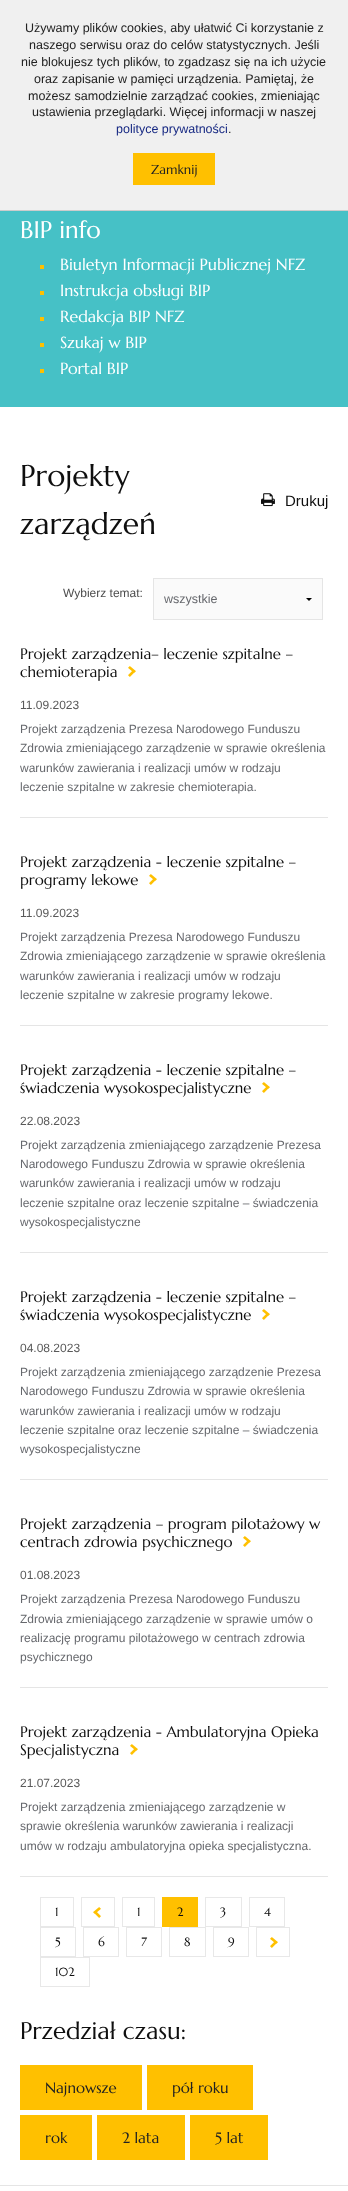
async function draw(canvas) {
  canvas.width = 348
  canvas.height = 2191
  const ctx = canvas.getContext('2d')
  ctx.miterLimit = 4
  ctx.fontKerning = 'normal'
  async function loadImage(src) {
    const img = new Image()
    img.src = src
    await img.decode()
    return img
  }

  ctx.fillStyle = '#fff'
  ctx.fillRect(0, 0, 348, 2191)
  ctx.fillStyle = '#f0f0f0'
  ctx.fillRect(0, 0, 348, 210)
  ctx.fillStyle = '#ccc'
  ctx.fillRect(0, 210, 348, 1)
  ctx.font = '12.5px Liberation Sans'
  ctx.fillStyle = '#222'
  ctx.fillText('Używamy plików cookies, aby ułatwić Ci korzystanie z', 25, 32)
  ctx.fillText('naszego serwisu oraz do celów statystycznych. Jeśli', 29, 49)
  ctx.fillText('nie blokujesz tych plików, to zgadzasz się na ich użycie', 21, 66)
  ctx.fillText('oraz zapisanie w pamięci urządzenia. Pamiętaj, że', 34, 83)
  ctx.fillText('możesz samodzielnie zarządzać cookies, zmieniając', 28, 100)
  ctx.fillText('ustawienia przeglądarki. Więcej informacji w naszej', 32, 116)
  ctx.fillStyle = '#172983'
  ctx.fillText('polityce prywatności', 116, 133)
  ctx.fillStyle = '#222'
  ctx.fillText('.', 228, 133)
  ctx.fillStyle = '#ffc000'
  ctx.fillRect(133, 153, 82, 32)
  ctx.font = '13px Marcellus'
  ctx.fillStyle = '#222'
  ctx.fillText('Zamknij', 151, 174)
  ctx.fillStyle = '#e5e5e5'
  ctx.fillRect(0, 2185, 348, 1)
  ctx.fillStyle = '#46c1c6'
  ctx.fillRect(0, 211, 348, 196)
  ctx.font = '24px Marcellus'
  ctx.fillStyle = '#fff'
  ctx.fillText('BIP info', 20, 238)
  ctx.fillStyle = '#ffc000'
  ctx.fillRect(40, 265, 4, 4)
  ctx.font = '16px Marcellus'
  ctx.fillStyle = '#fff'
  ctx.fillText('Biuletyn Informacji Publicznej NFZ', 60, 270)
  ctx.fillStyle = '#ffc000'
  ctx.fillRect(40, 291, 4, 4)
  ctx.fillStyle = '#fff'
  ctx.fillText('Instrukcja obsługi BIP', 60, 296)
  ctx.fillStyle = '#ffc000'
  ctx.fillRect(40, 317, 4, 4)
  ctx.fillStyle = '#fff'
  ctx.fillText('Redakcja BIP NFZ', 60, 322)
  ctx.fillStyle = '#ffc000'
  ctx.fillRect(40, 343, 4, 4)
  ctx.fillStyle = '#fff'
  ctx.fillText('Szukaj w BIP', 60, 348)
  ctx.fillStyle = '#ffc000'
  ctx.fillRect(40, 369, 4, 4)
  ctx.fillStyle = '#fff'
  ctx.fillText('Portal BIP', 60, 374)
  ctx.font = '30px Marcellus'
  ctx.fillStyle = '#0f0f0f'
  ctx.fillText('Projekty', 20, 486)
  ctx.fillText('zarządzeń', 20, 534)
  ctx.drawImage(await loadImage('image0.png'), 261, 493, 14, 14)
  ctx.font = '15px Liberation Sans'
  ctx.fillText('Drukuj', 285, 506)
  ctx.font = '12px Liberation Sans'
  ctx.fillStyle = '#4d4d4d'
  ctx.fillText('Wybierz temat:', 63, 597)
  ctx.fillStyle = '#fafafa'
  ctx.fillRect(154, 579, 168, 40)
  ctx.fillStyle = '#000'
  ctx.beginPath()
  ctx.moveTo(312, 598)
  ctx.lineTo(309, 601)
  ctx.lineTo(306, 598)
  ctx.closePath()
  ctx.fill()
  ctx.strokeStyle = '#e5e5e5'
  ctx.strokeRect(153.5, 578.5, 169, 41)
  ctx.font = '12.5px Liberation Sans'
  ctx.fillStyle = '#66686d'
  ctx.fillText('wszystkie', 164, 603)
  ctx.fillStyle = '#e5e5e5'
  ctx.fillRect(20, 817, 308, 1)
  ctx.font = '15px Marcellus'
  ctx.fillStyle = '#0f0f0f'
  ctx.fillText('Projekt zarządzenia– leczenie szpitalne –', 20, 659)
  ctx.fillText('chemioterapia', 20, 677)
  ctx.drawImage(await loadImage('image1.png'), 128, 666, 8, 11)
  ctx.font = '12px Liberation Sans'
  ctx.fillStyle = '#595959'
  ctx.fillText('11.09.2023', 20, 709)
  ctx.fillStyle = '#66686d'
  ctx.fillText('Projekt zarządzenia Prezesa Narodowego Funduszu', 20, 733)
  ctx.fillText('Zdrowia zmieniającego zarządzenie w sprawie określenia', 20, 752)
  ctx.fillText('warunków zawierania i realizacji umów w rodzaju', 20, 772)
  ctx.fillText('leczenie szpitalne w zakresie chemioterapia.', 20, 791)
  ctx.fillStyle = '#e5e5e5'
  ctx.fillRect(20, 1025, 308, 1)
  ctx.font = '15px Marcellus'
  ctx.fillStyle = '#0f0f0f'
  ctx.fillText('Projekt zarządzenia - leczenie szpitalne –', 20, 867)
  ctx.fillText('programy lekowe', 20, 885)
  ctx.drawImage(await loadImage('image1.png'), 149, 874, 8, 11)
  ctx.font = '12px Liberation Sans'
  ctx.fillStyle = '#595959'
  ctx.fillText('11.09.2023', 20, 917)
  ctx.fillStyle = '#66686d'
  ctx.fillText('Projekt zarządzenia Prezesa Narodowego Funduszu', 20, 941)
  ctx.fillText('Zdrowia zmieniającego zarządzenie w sprawie określenia', 20, 960)
  ctx.fillText('warunków zawierania i realizacji umów w rodzaju', 20, 980)
  ctx.fillText('leczenie szpitalne w zakresie programy lekowe.', 20, 999)
  ctx.fillStyle = '#e5e5e5'
  ctx.fillRect(20, 1252, 308, 1)
  ctx.font = '15px Marcellus'
  ctx.fillStyle = '#0f0f0f'
  ctx.fillText('Projekt zarządzenia - leczenie szpitalne –', 20, 1075)
  ctx.fillText('świadczenia wysokospecjalistyczne', 20, 1093)
  ctx.drawImage(await loadImage('image1.png'), 262, 1082, 8, 11)
  ctx.font = '12px Liberation Sans'
  ctx.fillStyle = '#595959'
  ctx.fillText('22.08.2023', 20, 1125)
  ctx.fillStyle = '#66686d'
  ctx.fillText('Projekt zarządzenia zmieniającego zarządzenie Prezesa', 20, 1149)
  ctx.fillText('Narodowego Funduszu Zdrowia w sprawie określenia', 20, 1168)
  ctx.fillText('warunków zawierania i realizacji umów w rodzaju', 20, 1187)
  ctx.fillText('leczenie szpitalne oraz leczenie szpitalne – świadczenia', 20, 1207)
  ctx.fillText('wysokospecjalistyczne', 20, 1226)
  ctx.fillStyle = '#e5e5e5'
  ctx.fillRect(20, 1479, 308, 1)
  ctx.font = '15px Marcellus'
  ctx.fillStyle = '#0f0f0f'
  ctx.fillText('Projekt zarządzenia - leczenie szpitalne –', 20, 1302)
  ctx.fillText('świadczenia wysokospecjalistyczne', 20, 1320)
  ctx.drawImage(await loadImage('image1.png'), 262, 1309, 8, 11)
  ctx.font = '12px Liberation Sans'
  ctx.fillStyle = '#595959'
  ctx.fillText('04.08.2023', 20, 1352)
  ctx.fillStyle = '#66686d'
  ctx.fillText('Projekt zarządzenia zmieniającego zarządzenie Prezesa', 20, 1376)
  ctx.fillText('Narodowego Funduszu Zdrowia w sprawie określenia', 20, 1395)
  ctx.fillText('warunków zawierania i realizacji umów w rodzaju', 20, 1415)
  ctx.fillText('leczenie szpitalne oraz leczenie szpitalne – świadczenia', 20, 1434)
  ctx.fillText('wysokospecjalistyczne', 20, 1453)
  ctx.fillStyle = '#e5e5e5'
  ctx.fillRect(20, 1687, 308, 1)
  ctx.font = '15px Marcellus'
  ctx.fillStyle = '#0f0f0f'
  ctx.fillText('Projekt zarządzenia – program pilotażowy w', 20, 1529)
  ctx.fillText('centrach zdrowia psychicznego', 20, 1547)
  ctx.drawImage(await loadImage('image1.png'), 243, 1536, 8, 11)
  ctx.font = '12px Liberation Sans'
  ctx.fillStyle = '#595959'
  ctx.fillText('01.08.2023', 20, 1579)
  ctx.fillStyle = '#66686d'
  ctx.fillText('Projekt zarządzenia Prezesa Narodowego Funduszu', 20, 1603)
  ctx.fillText('Zdrowia zmieniającego zarządzenie w sprawie umów o', 20, 1623)
  ctx.fillText('realizację programu pilotażowego w centrach zdrowia', 20, 1642)
  ctx.fillText('psychicznego', 20, 1661)
  ctx.fillStyle = '#e5e5e5'
  ctx.fillRect(20, 1876, 308, 1)
  ctx.font = '15px Marcellus'
  ctx.fillStyle = '#0f0f0f'
  ctx.fillText('Projekt zarządzenia - Ambulatoryjna Opieka', 20, 1737)
  ctx.fillText('Specjalistyczna', 20, 1755)
  ctx.drawImage(await loadImage('image1.png'), 130, 1744, 8, 11)
  ctx.font = '12px Liberation Sans'
  ctx.fillStyle = '#595959'
  ctx.fillText('21.07.2023', 20, 1787)
  ctx.fillStyle = '#66686d'
  ctx.fillText('Projekt zarządzenia zmieniającego zarządzenie w', 20, 1811)
  ctx.fillText('sprawie określenia warunków zawierania i realizacji', 20, 1830)
  ctx.fillText('umów w rodzaju ambulatoryjna opieka specjalistyczna.', 20, 1850)
  ctx.strokeStyle = '#e8e8e8'
  ctx.strokeRect(40.5, 1897.5, 33, 29)
  ctx.font = '12px Marcellus'
  ctx.fillStyle = '#0f0f0f'
  ctx.fillText('1', 55, 1916)
  ctx.drawImage(await loadImage('image2.png'), 93, 1907, 8, 11)
  ctx.strokeRect(81.5, 1897.5, 33, 29)
  ctx.strokeRect(122.5, 1897.5, 32, 29)
  ctx.fillText('1', 137, 1916)
  ctx.fillStyle = '#ffc000'
  ctx.fillRect(162, 1897, 36, 30)
  ctx.fillStyle = '#0f0f0f'
  ctx.fillText('2', 177, 1916)
  ctx.strokeRect(205.5, 1897.5, 36, 29)
  ctx.fillText('3', 220, 1916)
  ctx.strokeRect(249.5, 1897.5, 35, 29)
  ctx.fillText('4', 264, 1916)
  ctx.strokeRect(40.5, 1927.5, 35, 29)
  ctx.fillText('5', 55, 1946)
  ctx.strokeRect(83.5, 1927.5, 35, 29)
  ctx.fillText('6', 98, 1946)
  ctx.strokeRect(126.5, 1927.5, 35, 29)
  ctx.fillText('7', 141, 1946)
  ctx.strokeRect(169.5, 1927.5, 36, 29)
  ctx.fillText('8', 184, 1946)
  ctx.strokeRect(213.5, 1927.5, 35, 29)
  ctx.fillText('9', 228, 1946)
  ctx.drawImage(await loadImage('image1.png'), 270, 1937, 8, 11)
  ctx.strokeRect(256.5, 1927.5, 33, 29)
  ctx.strokeRect(40.5, 1957.5, 49, 29)
  ctx.fillText('102', 55, 1976)
  ctx.font = '24px Marcellus'
  ctx.fillText('Przedział czasu:', 20, 2039)
  ctx.fillStyle = '#ffc000'
  ctx.fillRect(20, 2065, 122, 45)
  ctx.font = '15px Marcellus'
  ctx.fillStyle = '#222'
  ctx.fillText('Najnowsze', 45, 2093)
  ctx.fillStyle = '#ffc000'
  ctx.fillRect(147, 2065, 106, 45)
  ctx.fillStyle = '#222'
  ctx.fillText('pół roku', 172, 2093)
  ctx.fillStyle = '#ffc000'
  ctx.fillRect(20, 2115, 72, 45)
  ctx.fillStyle = '#222'
  ctx.fillText('rok', 45, 2143)
  ctx.fillStyle = '#ffc000'
  ctx.fillRect(97, 2115, 88, 45)
  ctx.fillStyle = '#222'
  ctx.fillText('2 lata', 122, 2143)
  ctx.fillStyle = '#ffc000'
  ctx.fillRect(190, 2115, 78, 45)
  ctx.fillStyle = '#222'
  ctx.fillText('5 lat', 215, 2143)
}

draw(document.querySelector('canvas'))
